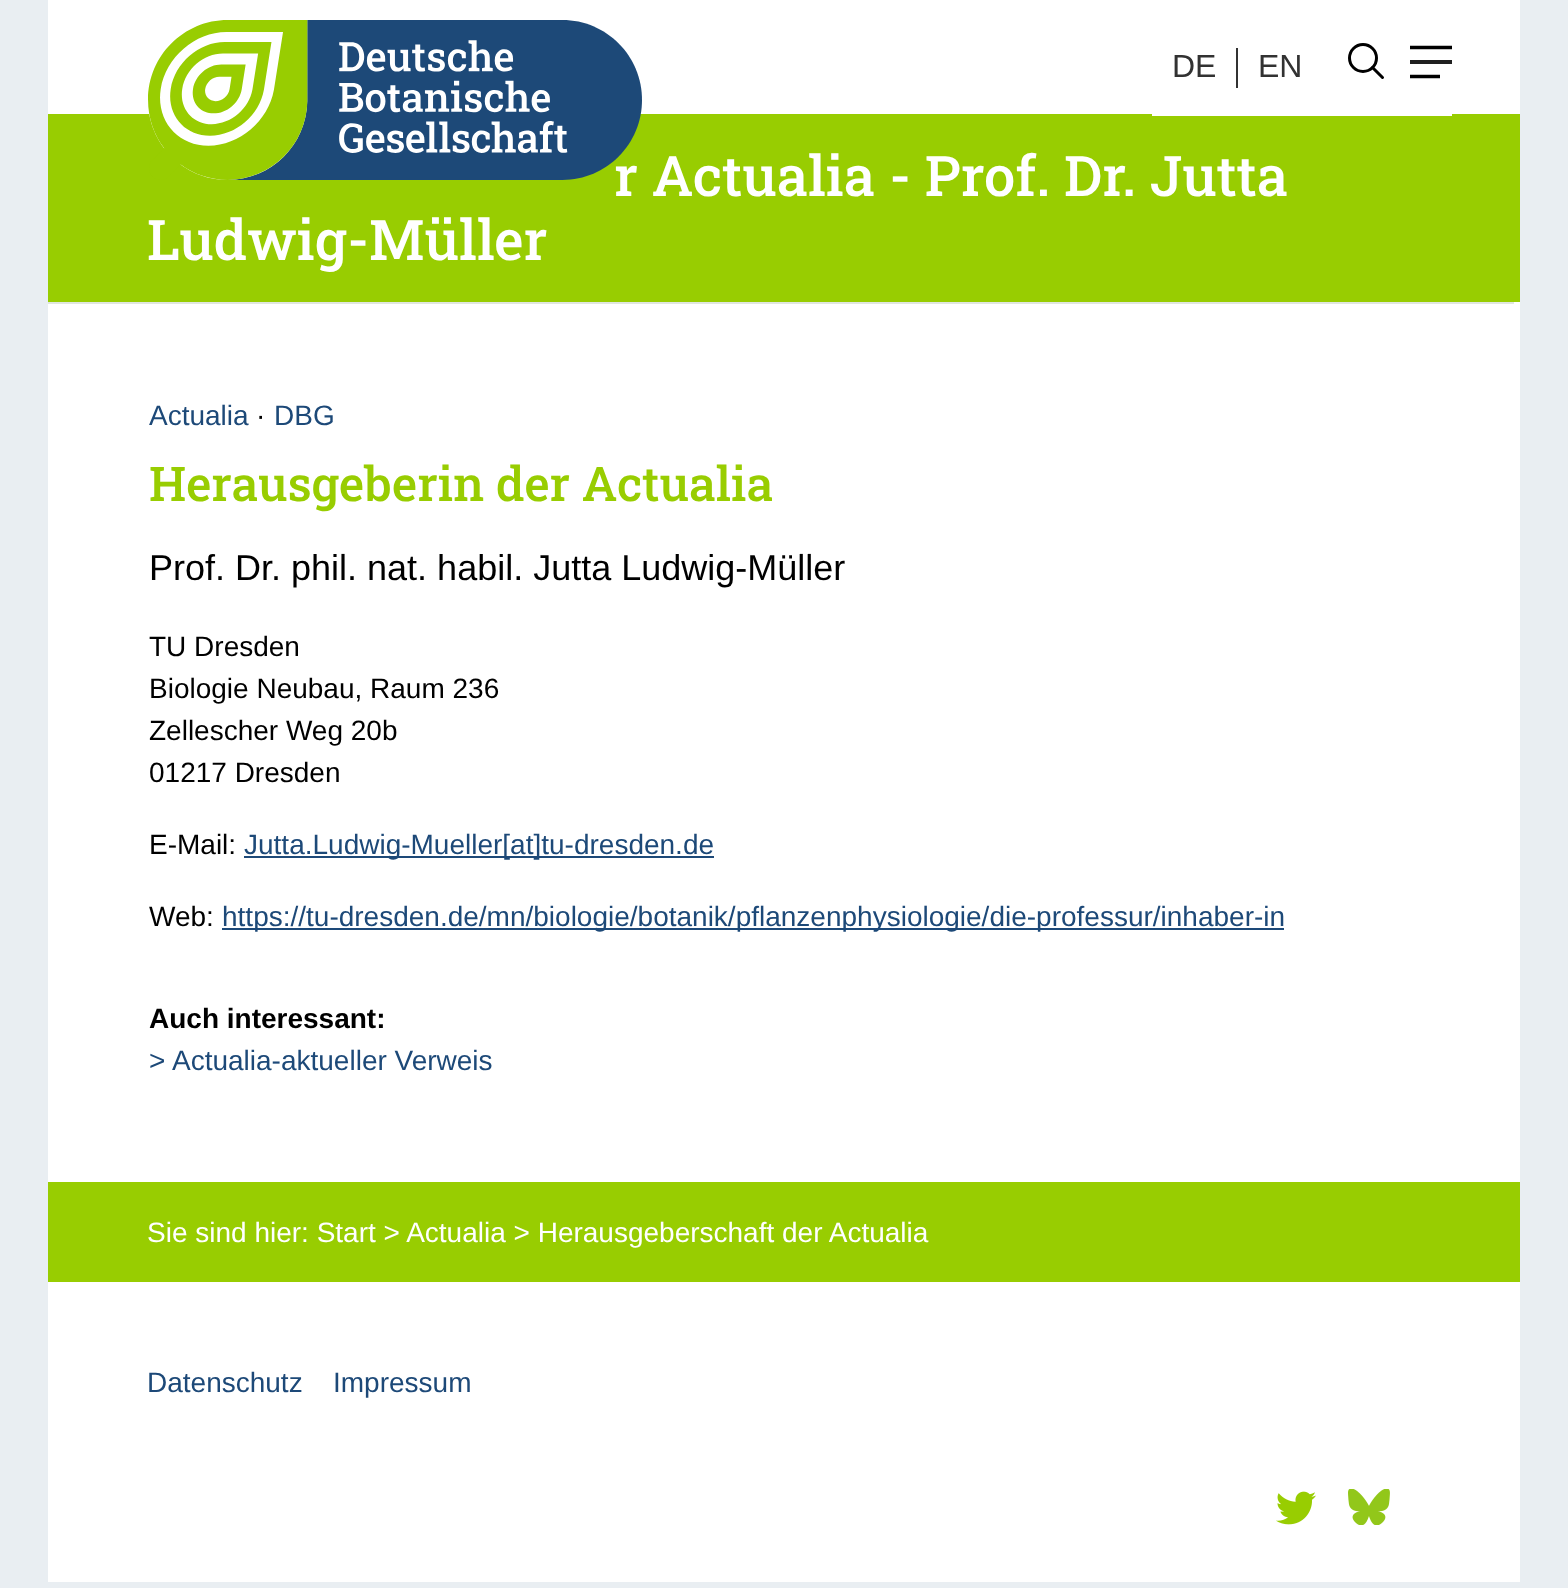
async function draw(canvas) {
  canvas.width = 1568
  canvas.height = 1588
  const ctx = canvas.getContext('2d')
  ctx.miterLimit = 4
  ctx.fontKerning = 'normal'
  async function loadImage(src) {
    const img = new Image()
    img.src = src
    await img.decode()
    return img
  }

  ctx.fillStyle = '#e9eef2'
  ctx.fillRect(0, 0, 1568, 1588)
  ctx.fillStyle = '#fff'
  ctx.fillRect(48, 0, 1472, 114)
  ctx.fillStyle = '#98cd01'
  ctx.fillRect(48, 114, 1472, 188)
  ctx.font = '500 56px Roboto Slab'
  ctx.fillStyle = '#fff'
  ctx.fillText('r Actualia - Prof. Dr. Jutta', 614, 196)
  ctx.drawImage(await loadImage('image0.png'), 148, 20, 494, 160)
  ctx.fillRect(1152, 114, 300, 2)
  ctx.font = '32px Liberation Sans'
  ctx.fillStyle = '#323232'
  ctx.fillText('DE', 1172, 77)
  ctx.fillRect(1236, 48, 2, 40)
  ctx.fillText('EN', 1258, 77)
  ctx.beginPath()
  ctx.arc(1363, 58, 13.5, 0, 2 * Math.PI)
  ctx.strokeStyle = '#000'
  ctx.lineWidth = 3
  ctx.stroke()
  ctx.beginPath()
  ctx.moveTo(1382.5, 77.5)
  ctx.lineTo(1372.5, 67.5)
  ctx.lineCap = 'round'
  ctx.lineJoin = 'round'
  ctx.stroke()
  ctx.beginPath()
  ctx.moveTo(1410, 47.5)
  ctx.lineTo(1452, 47.5)
  ctx.lineWidth = 3.5
  ctx.lineCap = 'butt'
  ctx.lineJoin = 'miter'
  ctx.stroke()
  ctx.fillStyle = '#202020'
  ctx.fillRect(1410, 60, 42, 4)
  ctx.beginPath()
  ctx.moveTo(1410, 76.5)
  ctx.lineTo(1440, 76.5)
  ctx.stroke()
  ctx.font = '500 56px Roboto Slab'
  ctx.fillStyle = '#fff'
  ctx.fillText('Ludwig-Müller', 147, 260)
  ctx.fillRect(48, 302, 1472, 880)
  ctx.fillStyle = '#e0e6df'
  ctx.fillRect(48, 302, 1466, 2)
  ctx.font = '28px Liberation Sans'
  ctx.fillStyle = '#1d4978'
  ctx.fillText('Actualia', 149, 425)
  ctx.fillStyle = '#000'
  ctx.fillText('·', 256, 425)
  ctx.fillStyle = '#1d4978'
  ctx.fillText('DBG', 274, 425)
  ctx.font = '500 48px Roboto Slab'
  ctx.fillStyle = '#98cd01'
  ctx.fillText('Herausgeberin der Actualia', 149, 501)
  ctx.font = '36px Liberation Sans'
  ctx.fillStyle = '#000'
  ctx.fillText('Prof. Dr. phil. nat. habil. Jutta Ludwig-Müller', 149, 580)
  ctx.font = '28px Liberation Sans'
  ctx.fillText('TU Dresden', 149, 656)
  ctx.fillText('Biologie Neubau, Raum 236', 149, 698)
  ctx.fillText('Zellescher Weg 20b', 149, 740)
  ctx.fillText('01217 Dresden', 149, 782)
  ctx.fillText('E-Mail:', 149, 854)
  ctx.fillStyle = '#1d4978'
  ctx.fillRect(244, 856, 470, 2)
  ctx.fillText('Jutta.Ludwig-Mueller[at]tu-dresden.de', 244, 854)
  ctx.fillStyle = '#000'
  ctx.fillText('Web:', 149, 926)
  ctx.fillStyle = '#1d4978'
  ctx.fillRect(222, 928, 1062, 2)
  ctx.fillText('https://tu-dresden.de/mn/biologie/botanik/pflanzenphysiologie/die-professur/inhaber-in', 222, 926)
  ctx.font = 'bold 28px Liberation Sans'
  ctx.fillStyle = '#000'
  ctx.fillText('Auch interessant:', 149, 1028)
  ctx.font = '28px Liberation Sans'
  ctx.fillStyle = '#1d4978'
  ctx.fillText('>', 149, 1070)
  ctx.fillText('Actualia-aktueller Verweis', 172, 1070)
  ctx.fillStyle = '#98cd01'
  ctx.fillRect(48, 1182, 1472, 100)
  ctx.fillStyle = '#fff'
  ctx.fillText('Sie sind hier: Start > Actualia > Herausgeberschaft der Actualia', 147, 1242)
  ctx.fillRect(48, 1282, 1472, 300)
  ctx.fillStyle = '#98cd01'
  ctx.fillRect(1276, 1491, 41, 34)
  ctx.drawImage(await loadImage('image1.png'), 1272, 1486, 48, 46)
  ctx.fillStyle = '#1d4978'
  ctx.fillText('Datenschutz', 147, 1392)
  ctx.fillText('Impressum', 333, 1392)
  ctx.drawImage(await loadImage('image2.png'), 1348, 1489, 42, 36)
}

draw(document.querySelector('canvas'))
